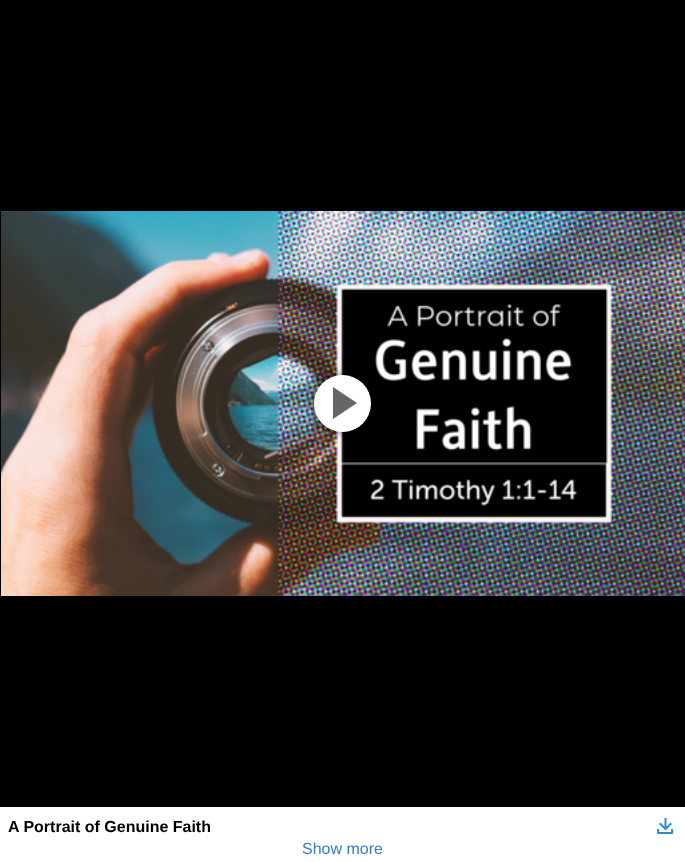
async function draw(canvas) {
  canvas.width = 685
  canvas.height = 862
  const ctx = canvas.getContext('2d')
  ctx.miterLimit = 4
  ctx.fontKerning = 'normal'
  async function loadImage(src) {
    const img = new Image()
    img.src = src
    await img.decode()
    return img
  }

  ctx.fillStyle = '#fff'
  ctx.fillRect(0, 0, 685, 862)
  ctx.fillStyle = '#000'
  ctx.fillRect(0, 0, 685, 807)
  ctx.drawImage(await loadImage('image0.png'), 1, 211, 684, 385)
  ctx.fillStyle = '#00000080'
  ctx.filter = 'blur(4px)'
  ctx.beginPath()
  ctx.roundRect(314, 375, 57, 57, 28.5)
  ctx.fill()
  ctx.filter = 'none'
  ctx.fillStyle = '#fff'
  ctx.beginPath()
  ctx.arc(342.5, 403.5, 28.5, 0, 2 * Math.PI)
  ctx.fill()
  ctx.fillStyle = '#666'
  ctx.beginPath()
  ctx.moveTo(357, 403)
  ctx.lineTo(333, 419)
  ctx.lineTo(333, 387)
  ctx.closePath()
  ctx.fill()
  ctx.font = 'bold 16px Liberation Sans'
  ctx.fillStyle = '#000'
  ctx.fillText('A Portrait of Genuine Faith', 8, 832)
  ctx.drawImage(await loadImage('image1.png'), 657, 818, 16, 16)
  ctx.font = '16px Liberation Sans'
  ctx.fillStyle = '#3a7ac9'
  ctx.fillText('Show more', 302, 854)
}

draw(document.querySelector('canvas'))
